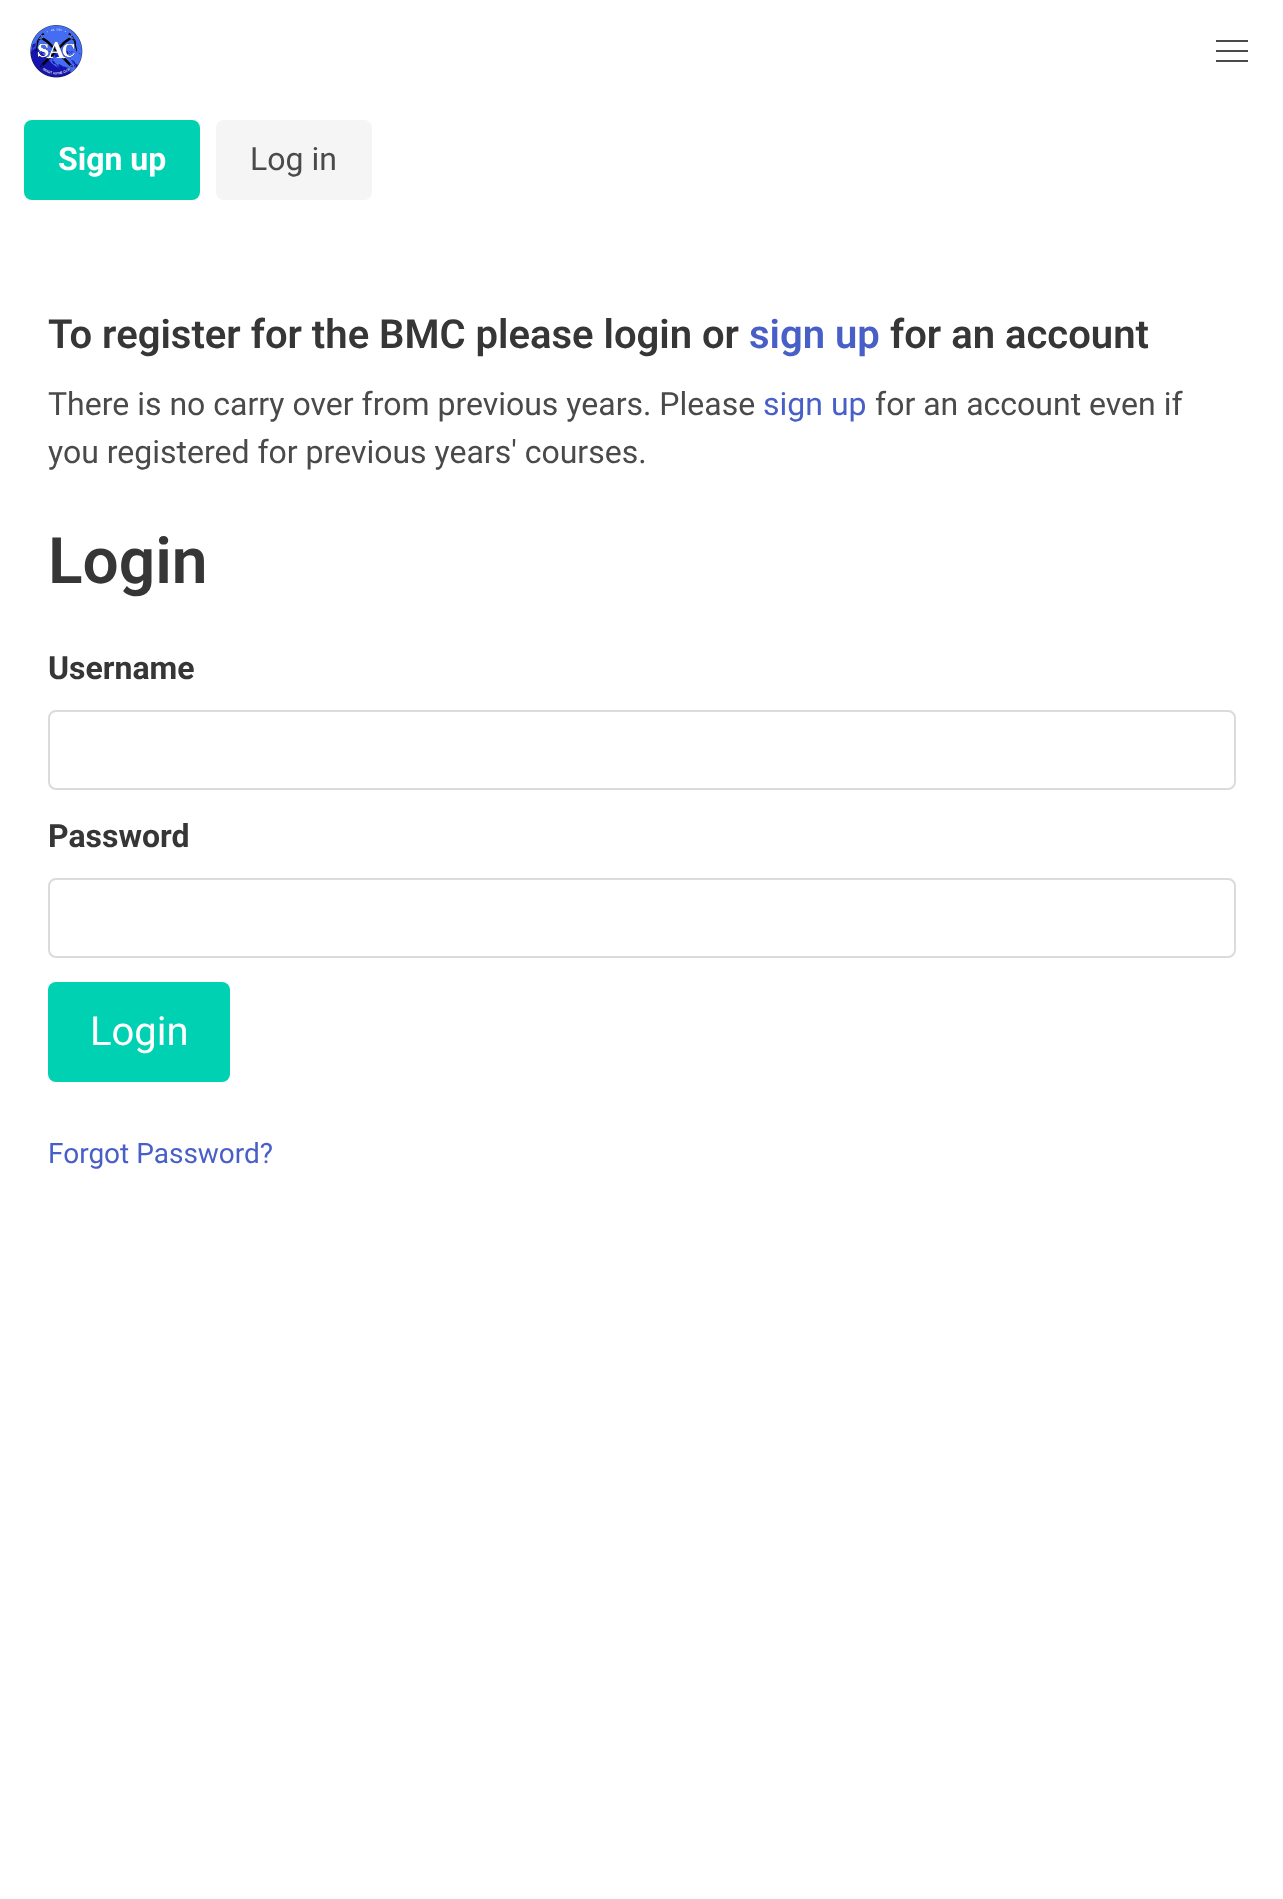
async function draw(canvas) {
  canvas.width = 1283
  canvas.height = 1899
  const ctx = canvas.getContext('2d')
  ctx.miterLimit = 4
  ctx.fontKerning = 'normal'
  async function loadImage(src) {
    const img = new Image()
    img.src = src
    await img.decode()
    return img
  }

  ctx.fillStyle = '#fff'
  ctx.fillRect(0, 0, 1283, 1899)
  ctx.drawImage(await loadImage('image0.png'), 30, 25, 53, 53)
  ctx.fillStyle = '#4a4a4a'
  ctx.fillRect(1216, 40, 32, 2)
  ctx.fillRect(1216, 50, 32, 2)
  ctx.fillRect(1216, 60, 32, 2)
  ctx.fillStyle = '#00d1b2'
  ctx.beginPath()
  ctx.roundRect(24, 120, 176, 80, 8)
  ctx.fill()
  ctx.font = 'bold 32px Roboto'
  ctx.fillStyle = '#fff'
  ctx.fillText('Sign up', 58, 170)
  ctx.fillStyle = '#f5f5f5'
  ctx.beginPath()
  ctx.roundRect(216, 120, 156, 80, 8)
  ctx.fill()
  ctx.font = '32px Roboto'
  ctx.fillStyle = '#4a4a4a'
  ctx.fillText('Log in', 250, 170)
  ctx.font = '600 40px Roboto'
  ctx.fillStyle = '#363636'
  ctx.fillText('To register for the BMC please login or', 48, 348)
  ctx.fillStyle = '#485fc7'
  ctx.fillText('sign up', 749, 348)
  ctx.fillStyle = '#363636'
  ctx.fillText('for an account', 890, 348)
  ctx.font = '32px Roboto'
  ctx.fillStyle = '#4a4a4a'
  ctx.fillText('There is no carry over from previous years. Please', 48, 415)
  ctx.fillStyle = '#485fc7'
  ctx.fillText('sign up', 763, 415)
  ctx.fillStyle = '#4a4a4a'
  ctx.fillText('for an account even if', 875, 415)
  ctx.fillText('you registered for previous years\' courses.', 48, 463)
  ctx.font = '600 64px Roboto'
  ctx.fillStyle = '#363636'
  ctx.fillText('Login', 48, 583)
  ctx.font = 'bold 32px Roboto'
  ctx.fillText('Username', 48, 679)
  ctx.beginPath()
  ctx.roundRect(49, 711, 1186, 78, 7)
  ctx.strokeStyle = '#dbdbdb'
  ctx.lineWidth = 2
  ctx.stroke()
  ctx.fillText('Password', 48, 847)
  ctx.beginPath()
  ctx.roundRect(49, 879, 1186, 78, 7)
  ctx.stroke()
  ctx.fillStyle = '#00d1b2'
  ctx.beginPath()
  ctx.roundRect(48, 982, 182, 100, 8)
  ctx.fill()
  ctx.font = '40px Roboto'
  ctx.fillStyle = '#fff'
  ctx.fillText('Login', 90, 1045)
  ctx.font = '28px Roboto'
  ctx.fillStyle = '#485fc7'
  ctx.fillText('Forgot Password?', 48, 1163)
}

draw(document.querySelector('canvas'))
